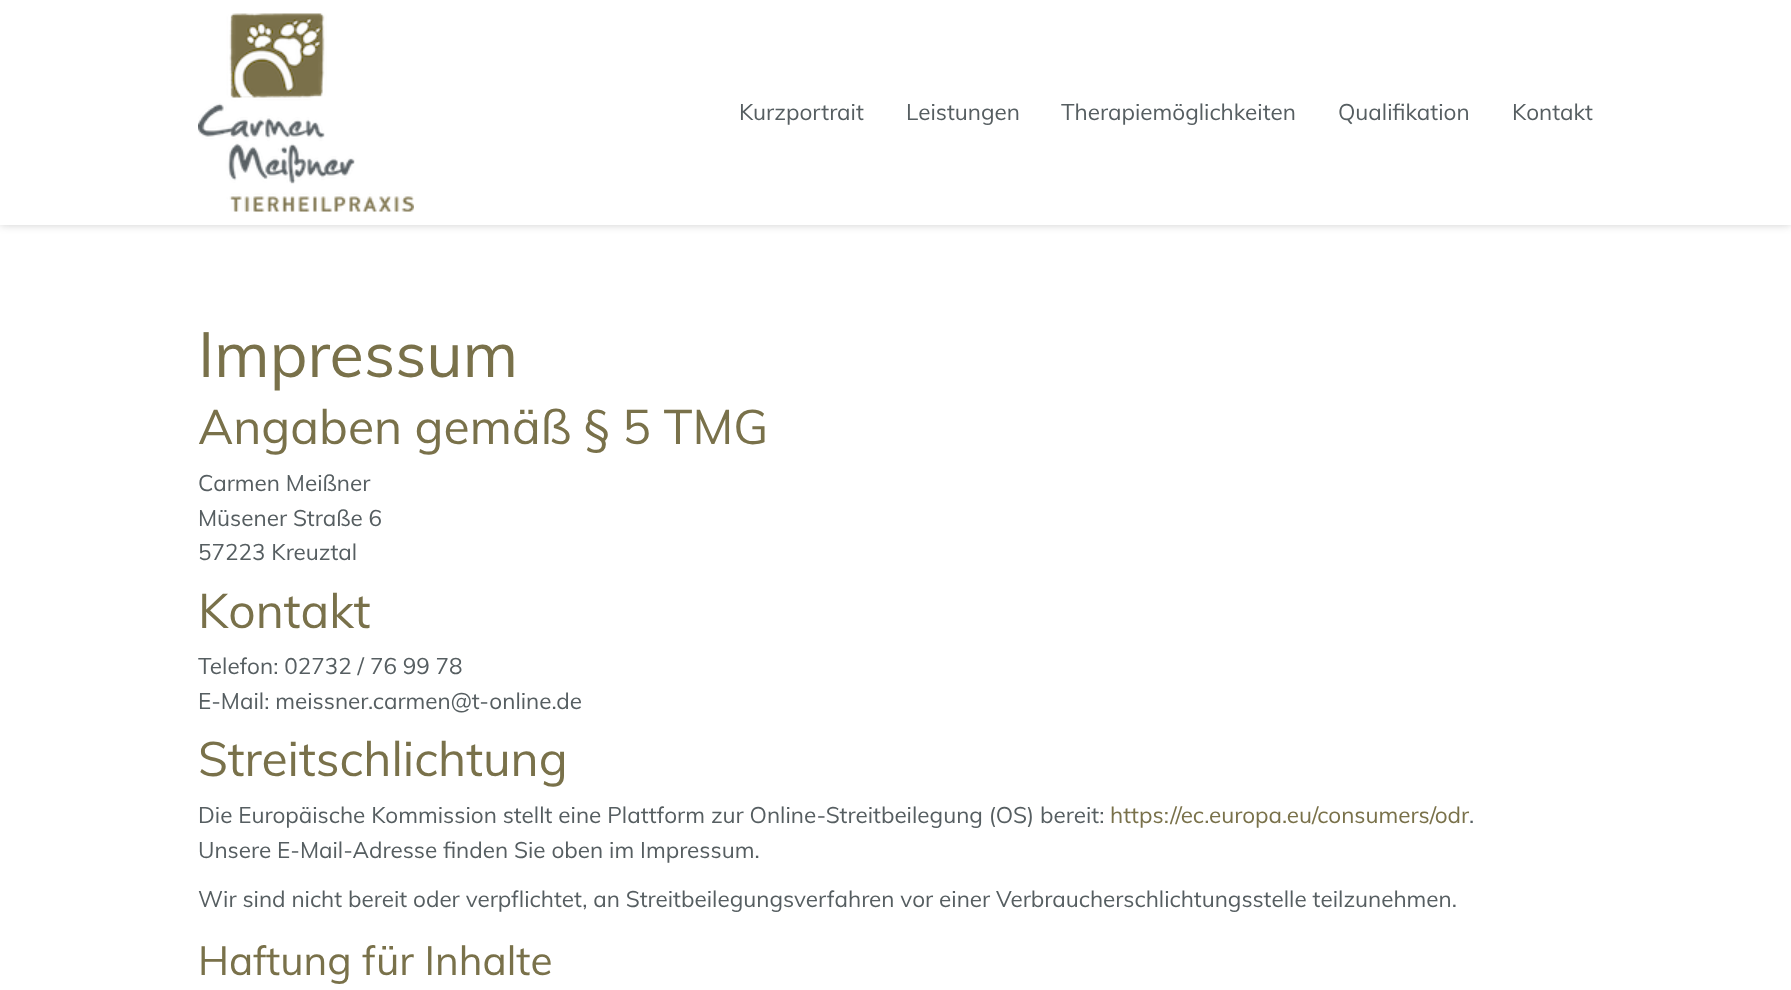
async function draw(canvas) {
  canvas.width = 1791
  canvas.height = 990
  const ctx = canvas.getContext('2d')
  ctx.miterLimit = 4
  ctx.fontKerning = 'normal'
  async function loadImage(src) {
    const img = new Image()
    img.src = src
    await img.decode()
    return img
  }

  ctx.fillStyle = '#fff'
  ctx.fillRect(0, 0, 1791, 990)
  ctx.fillStyle = '#00000030'
  ctx.filter = 'blur(4px)'
  ctx.beginPath()
  ctx.rect(0, 0, 1791, 225)
  ctx.fill()
  ctx.filter = 'none'
  ctx.fillStyle = '#fff'
  ctx.fillRect(0, 0, 1791, 225)
  ctx.drawImage(await loadImage('image0.png'), 198, 13, 216, 199)
  ctx.font = '22.5px Muli'
  ctx.fillStyle = '#565e61'
  ctx.fillText('Kurzportrait', 739, 120)
  ctx.fillText('Leistungen', 906, 120)
  ctx.fillText('Therapiemöglichkeiten', 1061, 120)
  ctx.fillText('Qualifikation', 1338, 120)
  ctx.fillText('Kontakt', 1512, 120)
  ctx.font = '63px Muli'
  ctx.fillStyle = '#79714a'
  ctx.fillText('Impressum', 198, 377)
  ctx.font = '48px Muli'
  ctx.fillText('Angaben gemäß § 5 TMG', 198, 444)
  ctx.font = '22.5px Muli'
  ctx.fillStyle = '#565e61'
  ctx.fillText('Carmen Meißner', 198, 491)
  ctx.fillText('Müsener Straße 6', 198, 526)
  ctx.fillText('57223 Kreuztal', 198, 560)
  ctx.font = '48px Muli'
  ctx.fillStyle = '#79714a'
  ctx.fillText('Kontakt', 198, 628)
  ctx.font = '22.5px Muli'
  ctx.fillStyle = '#565e61'
  ctx.fillText('Telefon: 02732 / 76 99 78', 198, 674)
  ctx.fillText('E-Mail: meissner.carmen@t-online.de', 198, 709)
  ctx.font = '48px Muli'
  ctx.fillStyle = '#79714a'
  ctx.fillText('Streitschlichtung', 198, 776)
  ctx.font = '22.5px Muli'
  ctx.fillStyle = '#565e61'
  ctx.fillText('Die Europäische Kommission stellt eine Plattform zur Online-Streitbeilegung (OS) bereit:', 198, 823)
  ctx.fillStyle = '#79714a'
  ctx.fillText('https://ec.europa.eu/consumers/odr', 1110, 823)
  ctx.fillStyle = '#565e61'
  ctx.fillText('.', 1469, 823)
  ctx.fillText('Unsere E-Mail-Adresse finden Sie oben im Impressum.', 198, 858)
  ctx.fillText('Wir sind nicht bereit oder verpflichtet, an Streitbeilegungsverfahren vor einer Verbraucherschlichtungsstelle teilzunehmen.', 198, 907)
  ctx.font = '40.5px Muli'
  ctx.fillStyle = '#79714a'
  ctx.fillText('Haftung für Inhalte', 198, 975)
}

draw(document.querySelector('canvas'))
